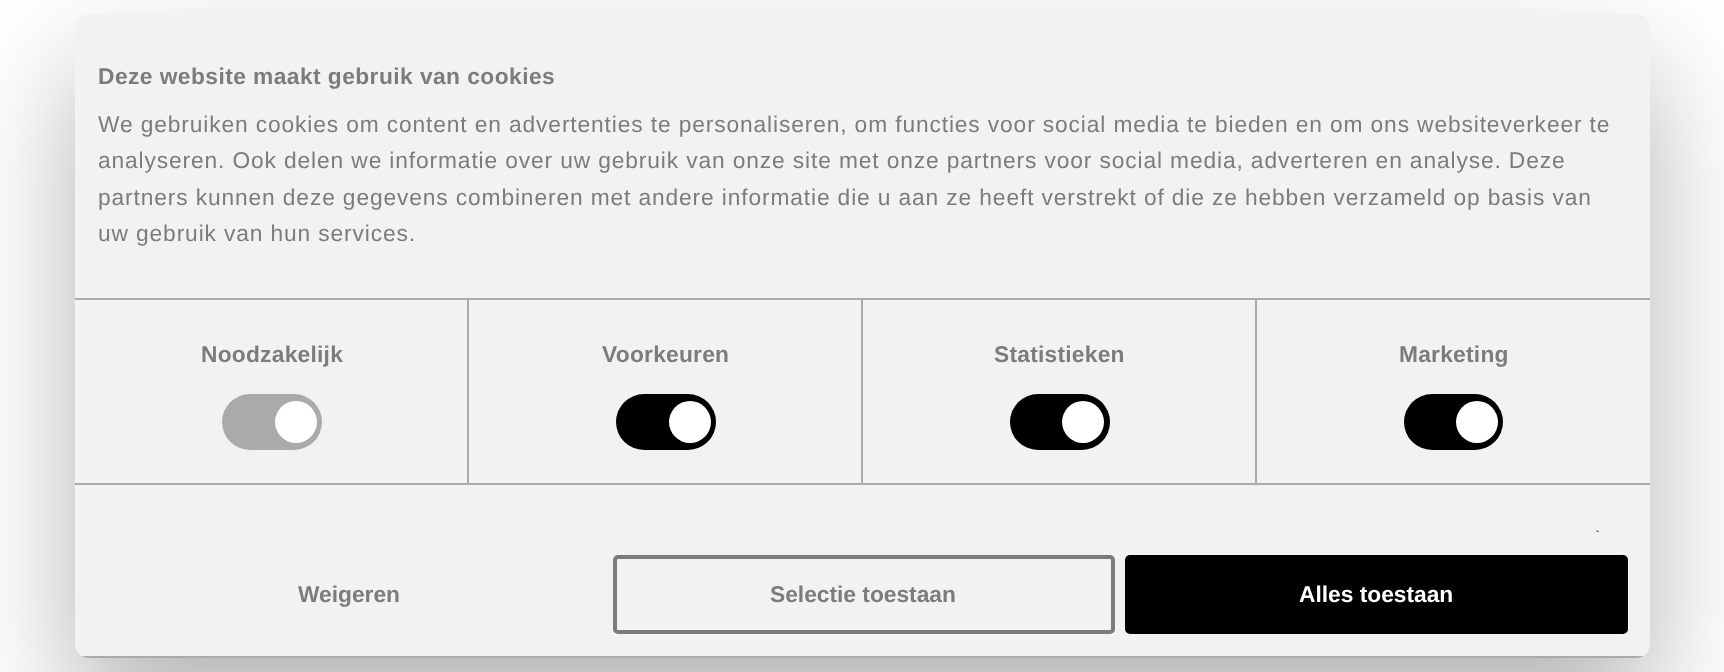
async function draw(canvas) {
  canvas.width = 1724
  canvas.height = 672
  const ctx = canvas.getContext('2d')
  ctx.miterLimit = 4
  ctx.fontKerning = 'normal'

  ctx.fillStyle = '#fff'
  ctx.fillRect(0, 0, 1724, 672)
  ctx.fillStyle = '#0000004d'
  ctx.filter = 'blur(59.5px)'
  ctx.beginPath()
  ctx.roundRect(75, 70, 1575, 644, 14)
  ctx.fill()
  ctx.filter = 'none'
  ctx.fillStyle = '#f2f2f2'
  ctx.beginPath()
  ctx.roundRect(75, 14, 1575, 644, 14)
  ctx.fill()
  ctx.fillStyle = '#aaa'
  ctx.fillRect(467, 299, 2, 184)
  ctx.fillRect(861, 299, 2, 184)
  ctx.fillRect(1255, 299, 2, 184)
  ctx.fillRect(75, 298, 1575, 2)
  ctx.letterSpacing = '0.45px'
  ctx.font = 'bold 22.75px Liberation Sans'
  ctx.fillStyle = '#7c7c7c'
  ctx.fillText('Deze website maakt gebruik van cookies', 98, 84)
  ctx.letterSpacing = '0.88px'
  ctx.font = '22.75px Liberation Sans'
  ctx.fillText('We gebruiken cookies om content en advertenties te personaliseren, om functies voor social media te bieden en om ons websiteverkeer te', 98, 132)
  ctx.fillText('analyseren. Ook delen we informatie over uw gebruik van onze site met onze partners voor social media, adverteren en analyse. Deze', 98, 168)
  ctx.fillText('partners kunnen deze gegevens combineren met andere informatie die u aan ze heeft verstrekt of die ze hebben verzameld op basis van', 98, 205)
  ctx.fillText('uw gebruik van hun services.', 98, 241)
  ctx.fillStyle = '#aaa'
  ctx.fillRect(75, 483, 1575, 2)
  ctx.letterSpacing = '0.25px'
  ctx.font = 'bold 22.75px Liberation Sans'
  ctx.fillStyle = '#7c7c7c'
  ctx.fillText('Noodzakelijk', 201, 362)
  ctx.fillStyle = '#aaa'
  ctx.beginPath()
  ctx.roundRect(222, 394, 100, 56, 28)
  ctx.fill()
  ctx.fillStyle = '#fff'
  ctx.beginPath()
  ctx.arc(296, 422, 21, 0, 2 * Math.PI)
  ctx.fill()
  ctx.fillStyle = '#7c7c7c'
  ctx.fillText('Voorkeuren', 602, 362)
  ctx.fillStyle = '#000'
  ctx.beginPath()
  ctx.roundRect(616, 394, 100, 56, 28)
  ctx.fill()
  ctx.fillStyle = '#fff'
  ctx.beginPath()
  ctx.arc(690, 422, 21, 0, 2 * Math.PI)
  ctx.fill()
  ctx.fillStyle = '#7c7c7c'
  ctx.fillText('Statistieken', 994, 362)
  ctx.fillStyle = '#000'
  ctx.beginPath()
  ctx.roundRect(1010, 394, 100, 56, 28)
  ctx.fill()
  ctx.fillStyle = '#fff'
  ctx.beginPath()
  ctx.arc(1083, 422, 21, 0, 2 * Math.PI)
  ctx.fill()
  ctx.fillStyle = '#7c7c7c'
  ctx.fillText('Marketing', 1399, 362)
  ctx.fillStyle = '#000'
  ctx.beginPath()
  ctx.roundRect(1404, 394, 99, 56, 28)
  ctx.fill()
  ctx.fillStyle = '#fff'
  ctx.beginPath()
  ctx.arc(1477, 422, 21, 0, 2 * Math.PI)
  ctx.fill()
  ctx.save()
  ctx.beginPath()
  ctx.rect(75, 14, 1575, 518)
  ctx.clip()
  ctx.fillStyle = '#7c7c7c'
  ctx.beginPath()
  ctx.moveTo(1597.5, 530)
  ctx.lineTo(1608, 540.5)
  ctx.lineTo(1606.5, 541.5)
  ctx.lineTo(1596, 531)
  ctx.closePath()
  ctx.fill()
  ctx.restore()
  ctx.save()
  ctx.beginPath()
  ctx.roundRect(75, 14, 1575, 644, 14)
  ctx.clip()
  ctx.fillStyle = '#aaa'
  ctx.fillRect(75, 656, 1575, 2)
  ctx.restore()
  ctx.letterSpacing = '0px'
  ctx.fillStyle = '#7c7c7c'
  ctx.fillText('Weigeren', 298, 602)
  ctx.beginPath()
  ctx.roundRect(615, 557, 498, 75, 3)
  ctx.strokeStyle = '#7c7c7c'
  ctx.lineWidth = 4
  ctx.stroke()
  ctx.fillText('Selectie toestaan', 770, 602)
  ctx.fillStyle = '#000'
  ctx.beginPath()
  ctx.roundRect(1127, 557, 499, 75, 3)
  ctx.fill()
  ctx.strokeStyle = '#000'
  ctx.stroke()
  ctx.fillStyle = '#fff'
  ctx.fillText('Alles toestaan', 1299, 602)
}

draw(document.querySelector('canvas'))
